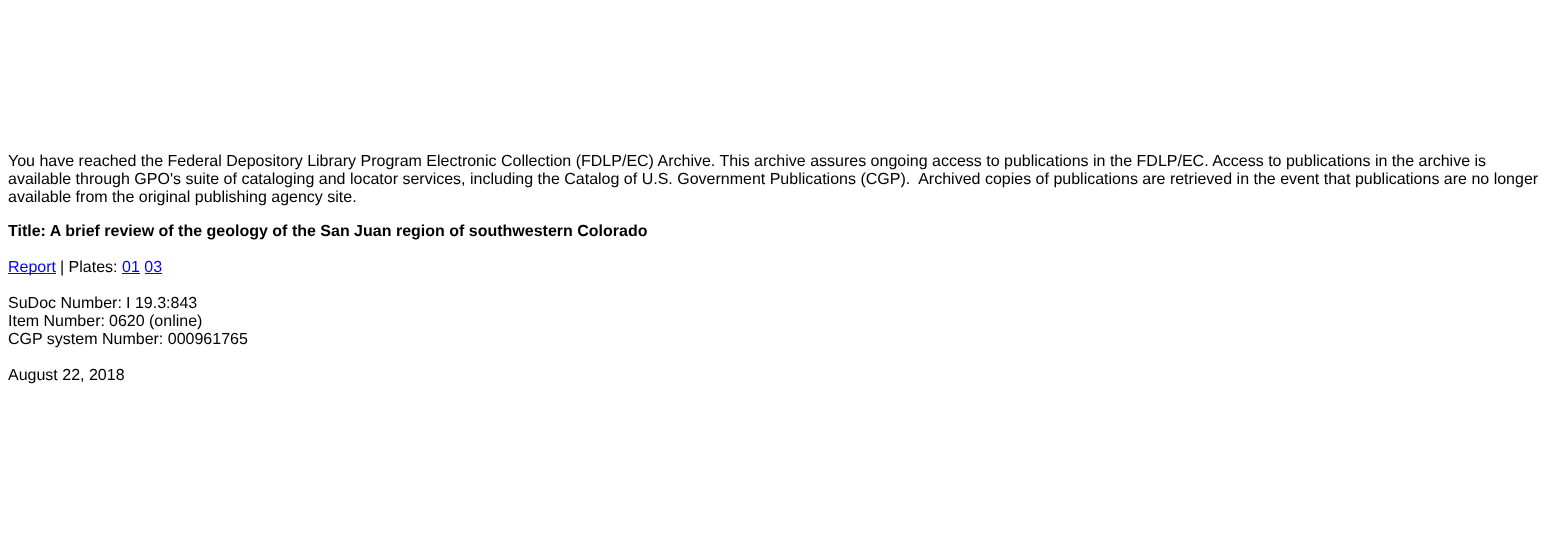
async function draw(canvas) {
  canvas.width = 1560
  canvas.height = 538
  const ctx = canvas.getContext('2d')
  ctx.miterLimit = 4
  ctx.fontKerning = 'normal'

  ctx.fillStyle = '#fff'
  ctx.fillRect(0, 0, 1560, 538)
  ctx.font = '16px Liberation Sans'
  ctx.fillStyle = '#000'
  ctx.fillText('You have reached the Federal Depository Library Program Electronic Collection (FDLP/EC) Archive. This archive assures ongoing access to publications in the FDLP/EC. Access to publications in the archive is', 8, 166)
  ctx.fillText('available through GPO\'s suite of cataloging and locator services, including the Catalog of U.S. Government Publications (CGP).  Archived copies of publications are retrieved in the event that publications are no longer', 8, 184)
  ctx.fillText('available from the original publishing agency site.', 8, 202)
  ctx.font = 'bold 16px Liberation Sans'
  ctx.fillText('Title: A brief review of the geology of the San Juan region of southwestern Colorado', 8, 236)
  ctx.fillStyle = '#00f'
  ctx.fillRect(8, 273, 48, 1)
  ctx.font = '16px Liberation Sans'
  ctx.fillText('Report', 8, 272)
  ctx.fillStyle = '#000'
  ctx.fillText('| Plates:', 60, 272)
  ctx.fillStyle = '#00f'
  ctx.fillText('01 03', 122, 272)
  ctx.fillRect(122, 273, 18, 1)
  ctx.fillRect(145, 273, 17, 1)
  ctx.fillStyle = '#000'
  ctx.fillText('SuDoc Number:', 8, 308)
  ctx.fillText('I 19.3:843', 126, 308)
  ctx.fillText('Item Number:', 8, 326)
  ctx.fillText('0620 (online)', 109, 326)
  ctx.fillText('CGP system Number: 000961765', 8, 344)
  ctx.fillText('August 22, 2018', 8, 380)
}

draw(document.querySelector('canvas'))
